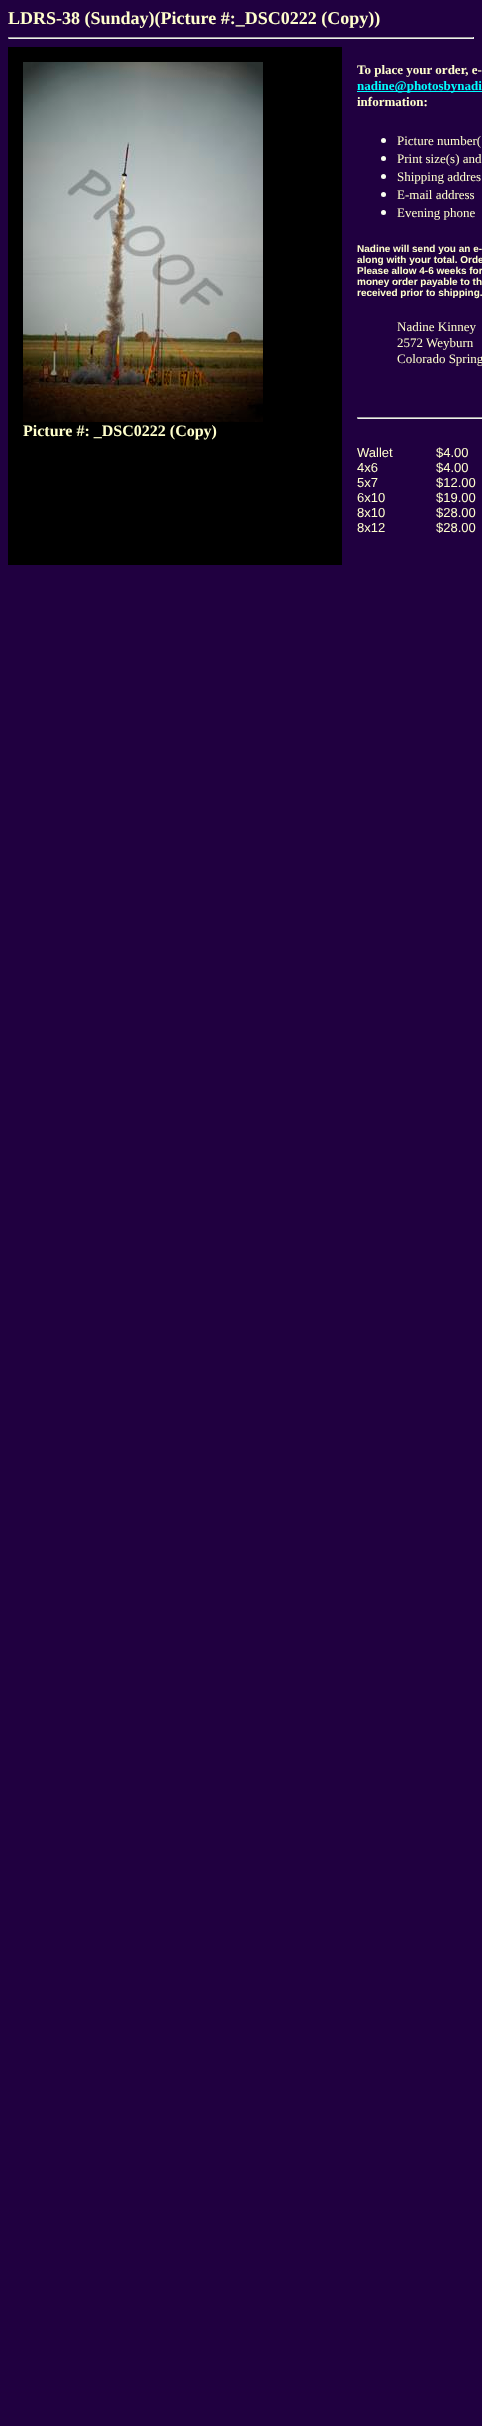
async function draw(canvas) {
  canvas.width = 482
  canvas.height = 2426
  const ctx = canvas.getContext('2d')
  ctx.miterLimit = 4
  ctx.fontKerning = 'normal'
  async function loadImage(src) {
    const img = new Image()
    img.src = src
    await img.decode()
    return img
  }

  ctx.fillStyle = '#200040'
  ctx.fillRect(0, 0, 482, 2426)
  ctx.font = 'bold 18px Liberation Serif'
  ctx.fillStyle = '#ffc'
  ctx.fillText('LDRS-38 (Sunday)(Picture #:_DSC0222 (Copy))', 8, 24)
  ctx.fillStyle = '#9f9f9f'
  ctx.fillRect(8, 37, 466, 1)
  ctx.fillStyle = '#eee'
  ctx.fillRect(473, 37, 1, 2)
  ctx.fillRect(8, 38, 466, 1)
  ctx.fillStyle = '#9f9f9f'
  ctx.fillRect(8, 37, 1, 2)
  ctx.fillStyle = '#000'
  ctx.fillRect(8, 47, 334, 518)
  ctx.drawImage(await loadImage('image0.png'), 23, 62, 240, 360)
  ctx.font = 'bold 16px Liberation Serif'
  ctx.fillStyle = '#ffc'
  ctx.fillText('Picture #: _DSC0222 (Copy)', 23, 436)
  ctx.font = 'bold 13px Liberation Serif'
  ctx.fillText('To place your order, e-', 357, 74)
  ctx.fillStyle = '#0ff'
  ctx.fillRect(357, 91, 125, 1)
  ctx.fillText('nadine@photosbynadi', 357, 90)
  ctx.fillStyle = '#ffc'
  ctx.fillText('information:', 357, 106)
  ctx.fillStyle = '#f9fff0'
  ctx.beginPath()
  ctx.arc(383.5, 140.5, 2.5, 0, 2 * Math.PI)
  ctx.fill()
  ctx.font = '13px Liberation Serif'
  ctx.fillStyle = '#ffc'
  ctx.fillText('Picture number(', 397, 145)
  ctx.fillStyle = '#f9fff0'
  ctx.beginPath()
  ctx.arc(383.5, 158.5, 2.5, 0, 2 * Math.PI)
  ctx.fill()
  ctx.fillStyle = '#ffc'
  ctx.fillText('Print size(s) and', 397, 163)
  ctx.fillStyle = '#f9fff0'
  ctx.beginPath()
  ctx.arc(383.5, 176.5, 2.5, 0, 2 * Math.PI)
  ctx.fill()
  ctx.fillStyle = '#ffc'
  ctx.fillText('Shipping addres', 397, 181)
  ctx.fillStyle = '#f9fff0'
  ctx.beginPath()
  ctx.arc(383.5, 194.5, 2.5, 0, 2 * Math.PI)
  ctx.fill()
  ctx.fillStyle = '#ffc'
  ctx.fillText('E-mail address', 397, 199)
  ctx.fillStyle = '#f9fff0'
  ctx.beginPath()
  ctx.arc(383.5, 212.5, 2.5, 0, 2 * Math.PI)
  ctx.fill()
  ctx.fillStyle = '#ffc'
  ctx.fillText('Evening phone', 397, 217)
  ctx.font = 'bold 10px Liberation Sans'
  ctx.fillText('Nadine will send you an e-', 357, 252)
  ctx.fillText('along with your total. Orde', 357, 263)
  ctx.fillText('Please allow 4-6 weeks for', 357, 274)
  ctx.fillText('money order payable to th', 357, 285)
  ctx.fillText('received prior to shipping.', 357, 296)
  ctx.font = '13px Liberation Serif'
  ctx.fillText('Nadine Kinney', 397, 331)
  ctx.fillText('2572 Weyburn', 397, 347)
  ctx.fillText('Colorado Spring', 397, 363)
  ctx.fillStyle = '#9f9f9f'
  ctx.fillRect(357, 417, 125, 1)
  ctx.fillStyle = '#eee'
  ctx.fillRect(357, 418, 125, 1)
  ctx.fillStyle = '#9f9f9f'
  ctx.fillRect(357, 417, 1, 2)
  ctx.font = '13px Liberation Sans'
  ctx.fillStyle = '#ffc'
  ctx.fillText('Wallet', 357, 457)
  ctx.fillText('$4.00', 436, 457)
  ctx.fillText('4x6', 357, 472)
  ctx.fillText('$4.00', 436, 472)
  ctx.fillText('5x7', 357, 487)
  ctx.fillText('$12.00', 436, 487)
  ctx.fillText('6x10', 357, 502)
  ctx.fillText('$19.00', 436, 502)
  ctx.fillText('8x10', 357, 517)
  ctx.fillText('$28.00', 436, 517)
  ctx.fillText('8x12', 357, 532)
  ctx.fillText('$28.00', 436, 532)
}

draw(document.querySelector('canvas'))
